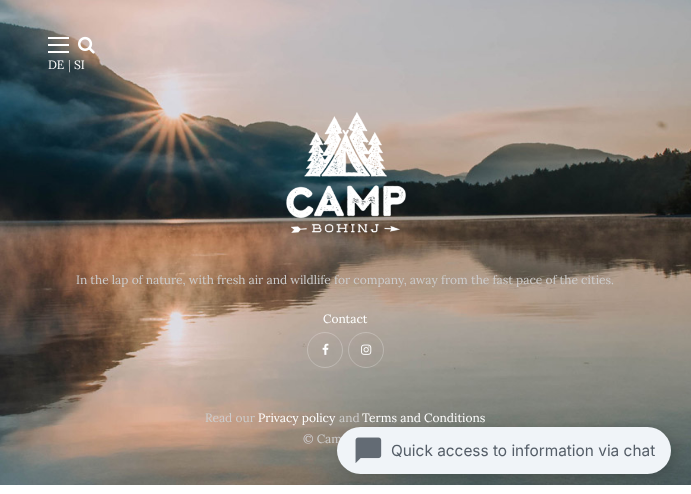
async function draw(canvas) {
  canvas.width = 691
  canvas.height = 494
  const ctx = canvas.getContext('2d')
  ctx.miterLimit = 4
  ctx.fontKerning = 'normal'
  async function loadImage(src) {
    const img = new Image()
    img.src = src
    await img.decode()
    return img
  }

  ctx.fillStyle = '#fff'
  ctx.fillRect(0, 0, 691, 494)
  ctx.drawImage(await loadImage('image0.png'), 0, 0, 691, 485)
  ctx.fillRect(48, 44, 21, 2)
  ctx.fillRect(48, 37, 21, 2)
  ctx.fillRect(48, 51, 21, 2)
  ctx.drawImage(await loadImage('image1.png'), 78, 36, 17, 18)
  ctx.font = '12px Lora'
  ctx.fillText('DE', 48, 69)
  ctx.fillStyle = '#ccc'
  ctx.fillText('|', 68, 69)
  ctx.fillStyle = '#fff'
  ctx.fillText('SI', 74, 69)
  ctx.drawImage(await loadImage('image2.png'), 286, 112, 120, 121)
  ctx.fillStyle = '#ccc'
  ctx.fillText('In the lap of nature, with fresh air and wildlife for company, away from the fast pace of the cities.', 76, 284)
  ctx.fillStyle = '#fff'
  ctx.fillText('Contact', 323, 323)
  ctx.beginPath()
  ctx.arc(325, 350, 17.5, 0, 2 * Math.PI)
  ctx.strokeStyle = '#ffffff40'
  ctx.stroke()
  ctx.drawImage(await loadImage('image3.png'), 322, 343, 7, 12)
  ctx.beginPath()
  ctx.arc(366, 350, 17.5, 0, 2 * Math.PI)
  ctx.stroke()
  ctx.drawImage(await loadImage('image4.png'), 361, 344, 11, 11)
  ctx.fillStyle = '#ccc'
  ctx.fillText('Read our', 205, 422)
  ctx.fillStyle = '#fff'
  ctx.fillText('Privacy policy', 258, 422)
  ctx.fillStyle = '#ccc'
  ctx.fillText('and ', 339, 422)
  ctx.fillStyle = '#fff'
  ctx.fillText('Terms and Conditions', 362, 422)
  ctx.fillStyle = '#ccc'
  ctx.fillText('© Cam', 303, 443)
  ctx.fillStyle = '#00000026'
  ctx.filter = 'blur(6px)'
  ctx.beginPath()
  ctx.roundRect(341, 431, 334, 47, 23.5)
  ctx.fill()
  ctx.filter = 'none'
  ctx.fillStyle = '#f0f4f8'
  ctx.beginPath()
  ctx.roundRect(337, 427, 334, 47, 23.5)
  ctx.fill()
  ctx.drawImage(await loadImage('image5.png'), 355, 437, 27, 26)
  ctx.font = '15.4px Inter'
  ctx.fillStyle = '#555e68'
  ctx.fillText('Quick access to information via chat', 391, 456)
}

draw(document.querySelector('canvas'))
